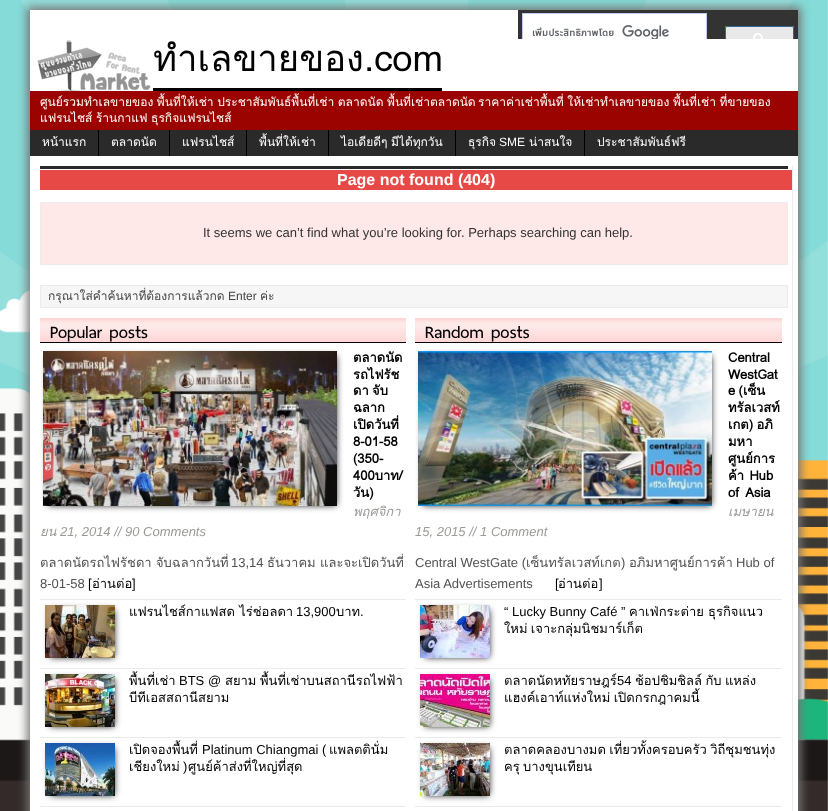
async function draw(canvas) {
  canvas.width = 828
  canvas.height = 811
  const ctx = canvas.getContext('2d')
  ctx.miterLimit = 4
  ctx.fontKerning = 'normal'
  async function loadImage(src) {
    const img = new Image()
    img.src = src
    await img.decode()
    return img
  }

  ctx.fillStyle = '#fff'
  ctx.fillRect(0, 0, 828, 811)
  ctx.drawImage(await loadImage('image0.png'), 0, 0, 828, 811)
  ctx.fillStyle = '#777'
  ctx.filter = 'blur(5px)'
  ctx.beginPath()
  ctx.rect(27, 7, 774, 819)
  ctx.fill()
  ctx.filter = 'none'
  ctx.fillStyle = '#fff'
  ctx.fillRect(30, 10, 768, 81)
  ctx.fillStyle = '#333'
  ctx.fillRect(518, 10, 280, 29)
  ctx.fillStyle = '#fff'
  ctx.fillRect(523, 14, 183, 25)
  ctx.save()
  ctx.beginPath()
  ctx.rect(518, 13, 280, 26)
  ctx.clip()
  ctx.strokeStyle = '#bccdf0'
  ctx.strokeRect(522.5, 13.5, 184, 52)
  ctx.restore()
  ctx.drawImage(await loadImage('image1.png'), 532, 25, 137, 14)
  ctx.fillStyle = '#e9e9e9'
  ctx.beginPath()
  ctx.roundRect(725, 26, 69, 13, [2, 2, 0, 0])
  ctx.fill()
  ctx.save()
  ctx.beginPath()
  ctx.rect(518, 13, 280, 26)
  ctx.clip()
  ctx.beginPath()
  ctx.roundRect(725.5, 26.5, 68, 26, 1.5)
  ctx.strokeStyle = '#369'
  ctx.stroke()
  ctx.restore()
  ctx.drawImage(await loadImage('image2.png'), 753, 33, 10, 6)
  ctx.drawImage(await loadImage('image3.png'), 37, 40, 114, 51)
  ctx.fillStyle = '#000'
  ctx.fillRect(153, 88, 289, 3)
  ctx.font = '36.5px Loma'
  ctx.fillText('ทำเลขายของ.com', 153, 71)
  ctx.fillStyle = '#9b0300'
  ctx.fillRect(30, 91, 768, 39)
  ctx.wordSpacing = '-0.5px'
  ctx.font = '12px Loma'
  ctx.fillStyle = '#fff'
  ctx.fillText('ศูนย์รวมทำเลขายของ พื้นที่ให้เช่า ประชาสัมพันธ์พื้นที่เช่า ตลาดนัด พื้นที่เช่าตลาดนัด', 40, 106)
  ctx.fillText('ราคาค่าเช่าพื้นที่ ให้เช่าทำเลขายของ พื้นที่เช่า ที่ขายของ', 478, 106)
  ctx.fillText('แฟรนไชส์ ร้านกาแฟ ธุรกิจแฟรนไชส์', 40, 122)
  ctx.fillStyle = '#2a2a2a'
  ctx.fillRect(30, 130, 768, 26)
  ctx.wordSpacing = '0px'
  ctx.fillStyle = '#fff'
  ctx.fillText('หน้าแรก', 42, 146)
  ctx.fillStyle = '#000'
  ctx.fillRect(98, 130, 1, 26)
  ctx.fillStyle = '#fff'
  ctx.fillText('ตลาดนัด', 111, 146)
  ctx.fillStyle = '#000'
  ctx.fillRect(169, 130, 1, 26)
  ctx.fillStyle = '#fff'
  ctx.fillText('แฟรนไชส์', 182, 146)
  ctx.fillStyle = '#000'
  ctx.fillRect(246, 130, 1, 26)
  ctx.fillStyle = '#fff'
  ctx.fillText('พื้นที่ให้เช่า', 259, 146)
  ctx.fillStyle = '#000'
  ctx.fillRect(328, 130, 1, 26)
  ctx.wordSpacing = '-0.5px'
  ctx.fillStyle = '#fff'
  ctx.fillText('ไอเดียดีๆ มีได้ทุกวัน', 341, 146)
  ctx.fillStyle = '#000'
  ctx.fillRect(455, 130, 1, 26)
  ctx.wordSpacing = '0px'
  ctx.fillStyle = '#fff'
  ctx.fillText('ธุรกิจ', 468, 146)
  ctx.font = '12px Liberation Sans'
  ctx.fillText('SME', 499, 146)
  ctx.font = '12px Loma'
  ctx.fillText('น่าสนใจ', 529, 146)
  ctx.fillStyle = '#000'
  ctx.fillRect(584, 130, 1, 26)
  ctx.fillStyle = '#fff'
  ctx.fillText('ประชาสัมพันธ์ฟรี', 597, 146)
  ctx.fillRect(30, 156, 768, 655)
  ctx.fillStyle = '#ebebeb'
  ctx.fillRect(792, 166, 1, 645)
  ctx.fillStyle = '#2a2a2a'
  ctx.fillRect(40, 166, 748, 3)
  ctx.fillStyle = '#e64946'
  ctx.fillRect(40, 170, 752, 20)
  ctx.font = 'bold 16px Liberation Sans'
  ctx.fillStyle = '#fff'
  ctx.fillText('Page not found (404)', 337, 185)
  ctx.fillStyle = '#ffe8e8'
  ctx.beginPath()
  ctx.rect(40.5, 202.5, 747, 62)
  ctx.fill()
  ctx.strokeStyle = '#ebebeb'
  ctx.stroke()
  ctx.font = '13px Liberation Sans'
  ctx.fillStyle = '#333'
  ctx.fillText('It seems we can’t find what you’re looking for. Perhaps searching can help.', 203, 237)
  ctx.fillStyle = '#f6f6f6'
  ctx.beginPath()
  ctx.rect(40.5, 285.5, 747, 22)
  ctx.fill()
  ctx.stroke()
  ctx.font = '12px Loma'
  ctx.fillStyle = '#444'
  ctx.fillText('กรุณาใส่คำค้นหาที่ต้องการแล้วกด', 48, 300)
  ctx.font = '12px Liberation Sans'
  ctx.fillText('Enter', 228, 300)
  ctx.font = '12px Loma'
  ctx.fillText('ค่ะ', 260, 300)
  ctx.drawImage(await loadImage('image4.png'), 40, 318, 366, 24)
  ctx.fillStyle = '#000'
  ctx.fillRect(40, 342, 366, 1)
  ctx.font = '600 22.5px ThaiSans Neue'
  ctx.fillText('Popular posts', 50, 338)
  ctx.fillStyle = '#ebebeb'
  ctx.fillRect(40, 599, 366, 1)
  ctx.fillStyle = '#000'
  ctx.filter = 'blur(3.5px)'
  ctx.beginPath()
  ctx.rect(48, 356, 288, 149)
  ctx.fill()
  ctx.filter = 'none'
  ctx.drawImage(await loadImage('image5.png'), 43, 351, 294, 155)
  ctx.font = 'bold 13px Loma'
  ctx.fillText('ตลาดนัด', 353, 362)
  ctx.fillText('รถไฟรัช', 353, 379)
  ctx.wordSpacing = '-1px'
  ctx.fillText('ดา จับ', 353, 395)
  ctx.wordSpacing = '0px'
  ctx.fillText('ฉลาก', 353, 412)
  ctx.fillText('เปิดวันที่', 353, 429)
  ctx.fillText('8-01-58', 353, 446)
  ctx.fillText('(350-', 353, 463)
  ctx.fillText('400บาท/', 353, 480)
  ctx.fillText('วัน)', 353, 497)
  ctx.font = 'italic 13px Loma'
  ctx.fillStyle = '#9a9b97'
  ctx.fillText('พฤศจิกา', 353, 516)
  ctx.fillText('ยน', 40, 536)
  ctx.font = 'italic 13px Liberation Sans'
  ctx.fillText('21, 2014 // 90 Comments', 60, 536)
  ctx.font = '13px Loma'
  ctx.fillStyle = '#525252'
  ctx.fillText('ตลาดนัดรถไฟรัชดา จับฉลากวันที่', 40, 567)
  ctx.font = '13px Liberation Sans'
  ctx.fillText('13,14', 231, 567)
  ctx.font = '13px Loma'
  ctx.fillText('ธันวาคม และจะเปิดวันที่', 267, 567)
  ctx.font = '13px Liberation Sans'
  ctx.fillText('8-01-58', 40, 588)
  ctx.fillStyle = '#000'
  ctx.fillText('[', 88, 588)
  ctx.font = '13px Loma'
  ctx.fillText('อ่านต่อ', 92, 588)
  ctx.font = '13px Liberation Sans'
  ctx.fillText(']', 132, 588)
  ctx.fillStyle = '#ebebeb'
  ctx.fillRect(40, 668, 366, 1)
  ctx.fillStyle = '#000'
  ctx.filter = 'blur(3.5px)'
  ctx.beginPath()
  ctx.rect(50, 610, 64, 47)
  ctx.fill()
  ctx.filter = 'none'
  ctx.drawImage(await loadImage('image6.png'), 45, 605, 70, 53)
  ctx.font = '13px Loma'
  ctx.fillText('แฟรนไชส์กาแฟสด ไร่ช่อลดา', 129, 616)
  ctx.font = '13px Liberation Sans'
  ctx.fillText('13,900', 296, 616)
  ctx.font = '13px Loma'
  ctx.fillText('บาท', 336, 616)
  ctx.font = '13px Liberation Sans'
  ctx.fillText('.', 360, 616)
  ctx.fillStyle = '#ebebeb'
  ctx.fillRect(40, 737, 366, 1)
  ctx.fillStyle = '#000'
  ctx.filter = 'blur(3.5px)'
  ctx.beginPath()
  ctx.rect(50, 679, 64, 47)
  ctx.fill()
  ctx.filter = 'none'
  ctx.drawImage(await loadImage('image7.png'), 45, 674, 70, 53)
  ctx.font = '13px Loma'
  ctx.fillText('พื้นที่เช่า', 129, 685)
  ctx.font = '13px Liberation Sans'
  ctx.fillText('BTS @', 179, 685)
  ctx.font = '13px Loma'
  ctx.fillText('สยาม', 225, 685)
  ctx.fillText('พื้นที่เช่าบนสถานีรถไฟฟ้า', 260, 685)
  ctx.fillText('บีทีเอสสถานีสยาม', 129, 702)
  ctx.fillStyle = '#ebebeb'
  ctx.fillRect(40, 806, 366, 1)
  ctx.fillStyle = '#000'
  ctx.filter = 'blur(3.5px)'
  ctx.beginPath()
  ctx.rect(50, 748, 64, 47)
  ctx.fill()
  ctx.filter = 'none'
  ctx.drawImage(await loadImage('image8.png'), 45, 743, 70, 53)
  ctx.fillText('เปิดจองพื้นที่', 129, 754)
  ctx.font = '13px Liberation Sans'
  ctx.fillText('Platinum Chiangmai (', 202, 754)
  ctx.font = '13px Loma'
  ctx.fillText('แพลตตินั่ม', 329, 754)
  ctx.fillText('เชียงใหม่', 129, 771)
  ctx.font = '13px Liberation Sans'
  ctx.fillText(')', 183, 771)
  ctx.font = '13px Loma'
  ctx.fillText('ศูนย์ค้าส่งที่ใหญ่ที่สุด', 188, 771)
  ctx.drawImage(await loadImage('image9.png'), 415, 318, 367, 24)
  ctx.fillRect(415, 342, 367, 1)
  ctx.font = '600 22.5px ThaiSans Neue'
  ctx.fillText('Random posts', 425, 338)
  ctx.fillStyle = '#ebebeb'
  ctx.fillRect(415, 599, 367, 1)
  ctx.fillStyle = '#000'
  ctx.filter = 'blur(3.5px)'
  ctx.beginPath()
  ctx.rect(423, 356, 288, 149)
  ctx.fill()
  ctx.filter = 'none'
  ctx.drawImage(await loadImage('image10.png'), 418, 351, 294, 155)
  ctx.font = 'bold 13px Loma'
  ctx.fillText('Central', 728, 362)
  ctx.fillText('WestGat', 728, 379)
  ctx.wordSpacing = '-1px'
  ctx.fillText('e (เซ็น', 728, 395)
  ctx.wordSpacing = '0px'
  ctx.fillText('ทรัลเวสท์', 728, 412)
  ctx.wordSpacing = '-1px'
  ctx.fillText('เกต) อภิ', 728, 429)
  ctx.wordSpacing = '0px'
  ctx.fillText('มหา', 728, 446)
  ctx.fillText('ศูนย์การ', 728, 463)
  ctx.wordSpacing = '1px'
  ctx.fillText('ค้า Hub', 728, 480)
  ctx.wordSpacing = '2px'
  ctx.fillText('of Asia', 728, 497)
  ctx.wordSpacing = '0px'
  ctx.font = 'italic 13px Loma'
  ctx.fillStyle = '#9a9b97'
  ctx.fillText('เมษายน', 728, 516)
  ctx.font = 'italic 13px Liberation Sans'
  ctx.fillText('15, 2015 // 1 Comment', 415, 536)
  ctx.font = '13px Liberation Sans'
  ctx.fillStyle = '#525252'
  ctx.fillText('Central WestGate (', 415, 567)
  ctx.font = '13px Loma'
  ctx.fillText('เซ็นทรัลเวสท์เกต', 526, 567)
  ctx.font = '13px Liberation Sans'
  ctx.fillText(')', 621, 567)
  ctx.font = '13px Loma'
  ctx.fillText('อภิมหาศูนย์การค้า', 629, 567)
  ctx.font = '13px Liberation Sans'
  ctx.fillText('Hub of', 736, 567)
  ctx.fillText('Asia Advertisements', 415, 588)
  ctx.fillStyle = '#000'
  ctx.fillText('[', 555, 588)
  ctx.font = '13px Loma'
  ctx.fillText('อ่านต่อ', 558, 588)
  ctx.font = '13px Liberation Sans'
  ctx.fillText(']', 599, 588)
  ctx.fillStyle = '#ebebeb'
  ctx.fillRect(415, 668, 367, 1)
  ctx.fillStyle = '#000'
  ctx.filter = 'blur(3.5px)'
  ctx.beginPath()
  ctx.rect(425, 610, 64, 47)
  ctx.fill()
  ctx.filter = 'none'
  ctx.drawImage(await loadImage('image11.png'), 420, 605, 70, 53)
  ctx.fillText('“ Lucky Bunny Café ”', 504, 616)
  ctx.font = '13px Loma'
  ctx.fillText('คาเฟ่กระต่าย', 629, 616)
  ctx.fillText('ธุรกิจแนว', 708, 616)
  ctx.wordSpacing = '-1px'
  ctx.fillText('ใหม่ เจาะกลุ่มนิชมาร์เก็ต', 504, 633)
  ctx.fillStyle = '#ebebeb'
  ctx.fillRect(415, 737, 367, 1)
  ctx.fillStyle = '#000'
  ctx.filter = 'blur(3.5px)'
  ctx.beginPath()
  ctx.rect(425, 679, 64, 47)
  ctx.fill()
  ctx.filter = 'none'
  ctx.drawImage(await loadImage('image12.png'), 420, 674, 70, 53)
  ctx.wordSpacing = '0px'
  ctx.fillText('ตลาดนัดหทัยราษฎร์', 504, 685)
  ctx.font = '13px Liberation Sans'
  ctx.fillText('54', 617, 685)
  ctx.wordSpacing = '-1px'
  ctx.font = '13px Loma'
  ctx.fillText('ช้อปชิมชิลล์ กับ แหล่ง', 635, 685)
  ctx.fillText('แฮงค์เอาท์แห่งใหม่ เปิดกรกฎาคมนี้', 504, 702)
  ctx.fillStyle = '#ebebeb'
  ctx.fillRect(415, 806, 367, 1)
  ctx.fillStyle = '#000'
  ctx.filter = 'blur(3.5px)'
  ctx.beginPath()
  ctx.rect(425, 748, 64, 47)
  ctx.fill()
  ctx.filter = 'none'
  ctx.drawImage(await loadImage('image13.png'), 420, 743, 70, 53)
  ctx.fillText('ตลาดคลองบางมด เที่ยวทั้งครอบครัว วิถีชุมชนทุ่ง', 504, 754)
  ctx.fillText('ครุ บางขุนเทียน', 504, 771)
}

draw(document.querySelector('canvas'))
